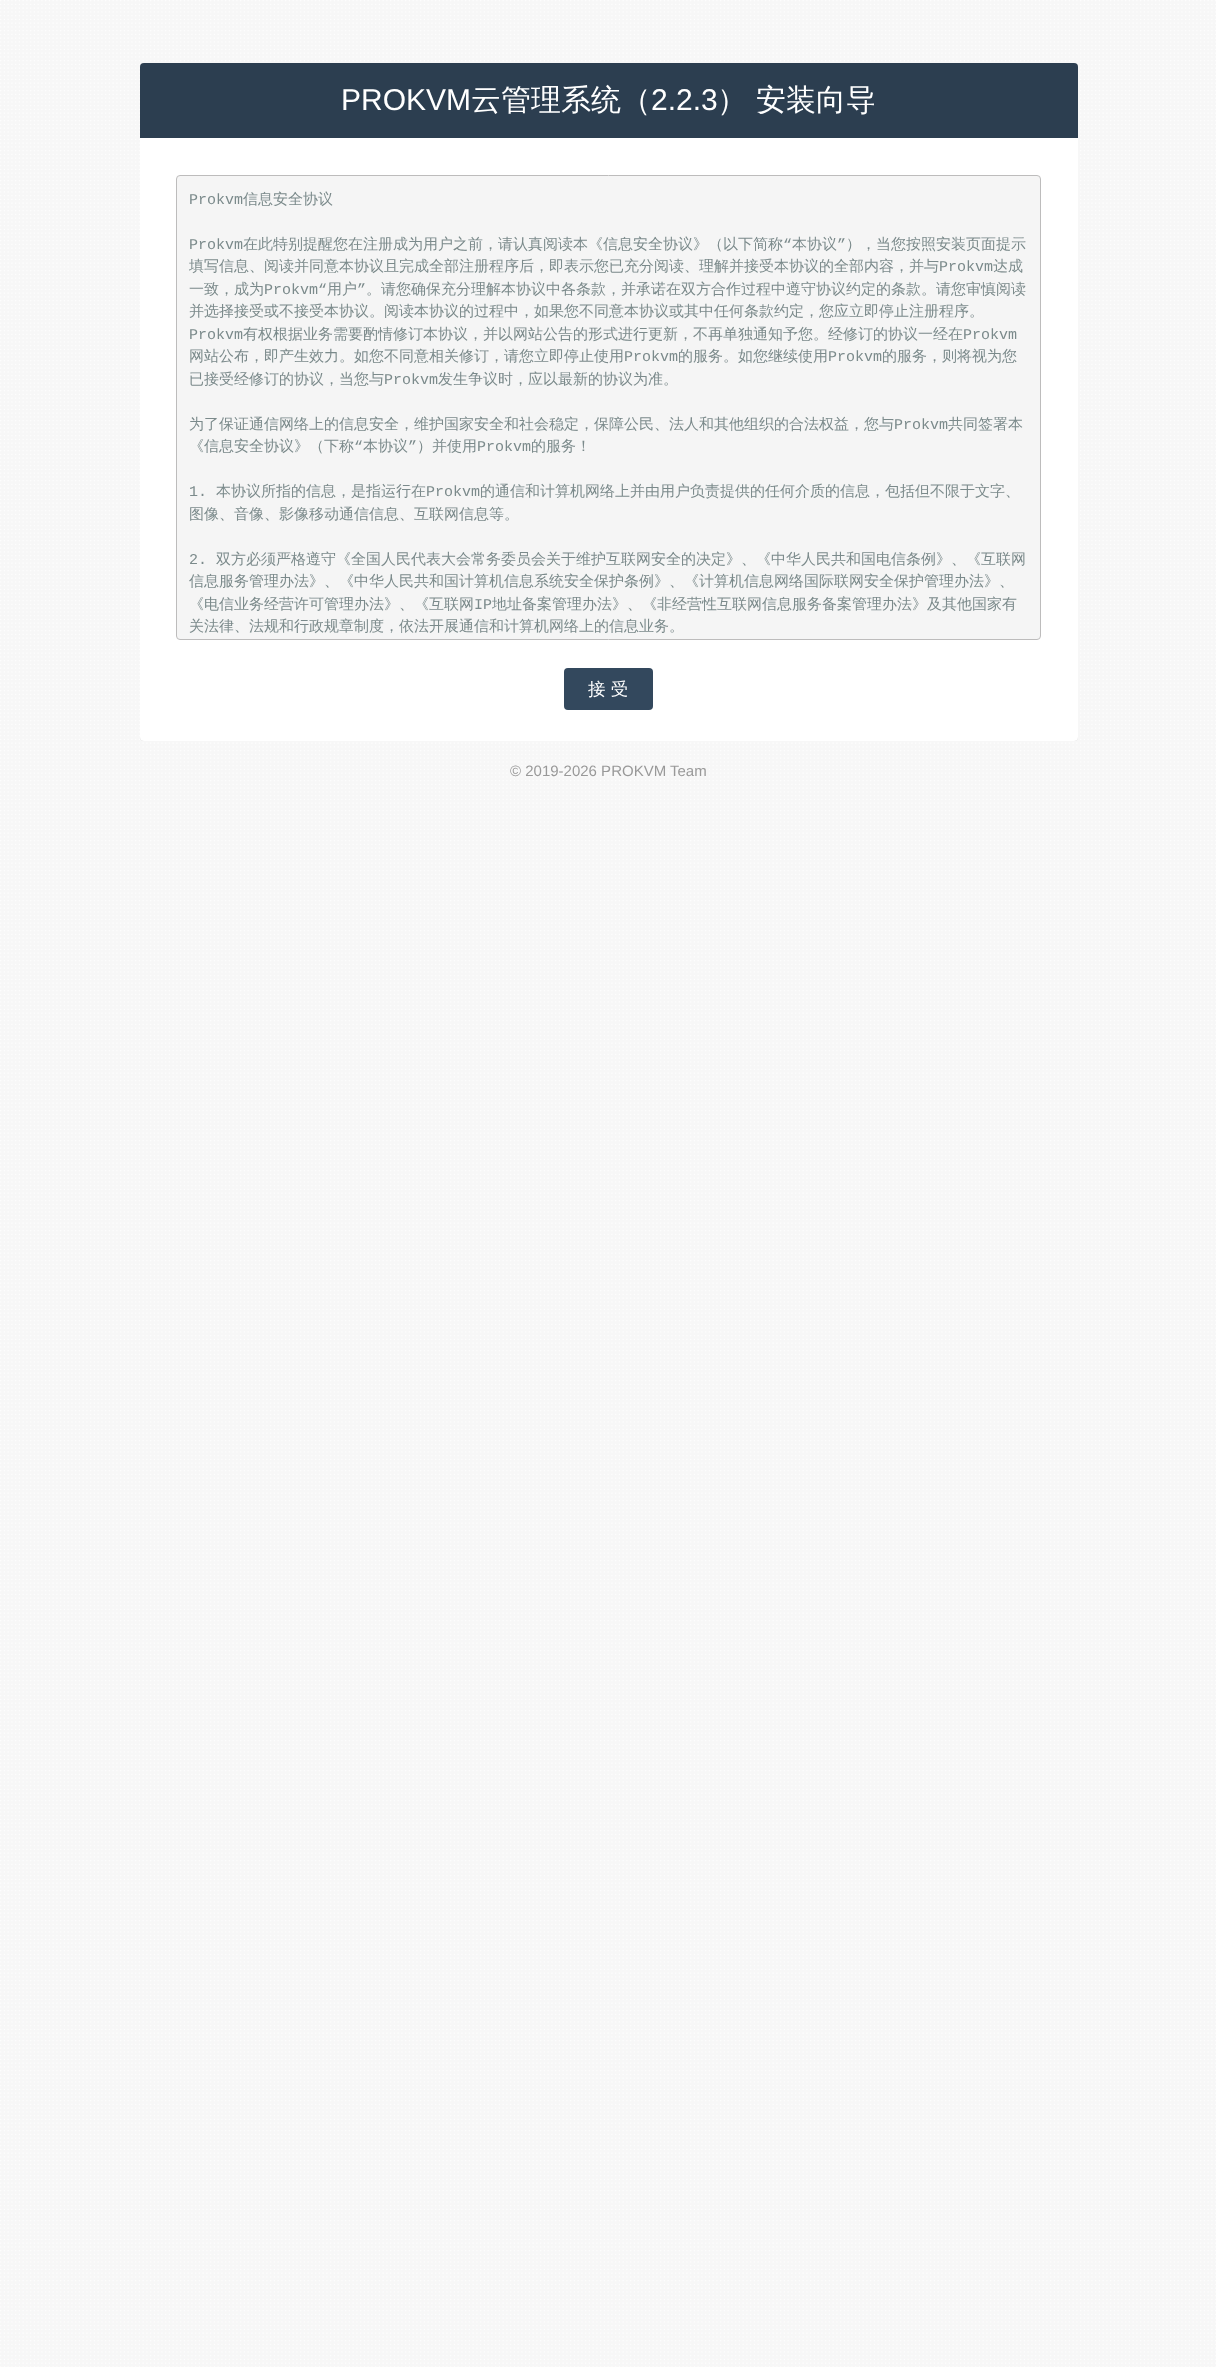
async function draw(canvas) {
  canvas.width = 1216
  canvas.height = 2367
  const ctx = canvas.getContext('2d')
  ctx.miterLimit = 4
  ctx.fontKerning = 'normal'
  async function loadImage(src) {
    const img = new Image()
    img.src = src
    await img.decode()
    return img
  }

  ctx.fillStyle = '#fff'
  ctx.fillRect(0, 0, 1216, 2367)
  ctx.drawImage(await loadImage('image0.png'), 0, 0, 1216, 2367)
  ctx.fillStyle = '#ccc'
  ctx.filter = 'blur(0.5px)'
  ctx.beginPath()
  ctx.roundRect(140, 63, 938, 678, 4)
  ctx.fill()
  ctx.filter = 'none'
  ctx.fillStyle = '#fff'
  ctx.beginPath()
  ctx.roundRect(140, 63, 938, 678, 4)
  ctx.fill()
  ctx.fillStyle = '#2c3e50'
  ctx.beginPath()
  ctx.roundRect(140, 63, 938, 75, [4, 4, 0, 0])
  ctx.fill()
  ctx.font = '30px Liberation Sans'
  ctx.fillStyle = '#fff'
  ctx.fillText('PROKVM', 341, 110)
  ctx.font = '500 30px WenQuanYi Zen Hei'
  ctx.fillText('云管理系统（', 471, 110)
  ctx.font = '30px Liberation Sans'
  ctx.fillText('2.2.3', 651, 110)
  ctx.font = '500 30px WenQuanYi Zen Hei'
  ctx.fillText('）', 717, 110)
  ctx.fillText('安装向导', 756, 110)
  ctx.fillStyle = '#f5f5f5'
  ctx.beginPath()
  ctx.roundRect(176.5, 175.5, 864, 464, 3.5)
  ctx.fill()
  ctx.strokeStyle = '#bdbcbc'
  ctx.stroke()
  ctx.font = '15px Liberation Mono'
  ctx.fillStyle = '#7b8a8b'
  ctx.fillText('Prokvm', 189, 204)
  ctx.font = '500 15px WenQuanYi Zen Hei'
  ctx.fillText('信息安全协议', 243, 204)
  ctx.font = '15px Liberation Mono'
  ctx.fillText('Prokvm', 189, 249)
  ctx.font = '500 15px WenQuanYi Zen Hei'
  ctx.fillText('在此特别提醒您在注册成为用户之前，请认真阅读本《信息安全协议》（以下简称', 243, 249)
  ctx.font = '15px Liberation Mono'
  ctx.fillText('“', 783, 249)
  ctx.font = '500 15px WenQuanYi Zen Hei'
  ctx.fillText('本协议', 792, 249)
  ctx.font = '15px Liberation Mono'
  ctx.fillText('”', 837, 249)
  ctx.font = '500 15px WenQuanYi Zen Hei'
  ctx.fillText('），当您按照安装页面提示', 846, 249)
  ctx.fillText('填写信息、阅读并同意本协议且完成全部注册程序后，即表示您已充分阅读、理解并接受本协议的全部内容，并与', 189, 271)
  ctx.font = '15px Liberation Mono'
  ctx.fillText('Prokvm', 939, 271)
  ctx.font = '500 15px WenQuanYi Zen Hei'
  ctx.fillText('达成', 993, 271)
  ctx.fillText('一致，成为', 189, 294)
  ctx.font = '15px Liberation Mono'
  ctx.fillText('Prokvm“', 264, 294)
  ctx.font = '500 15px WenQuanYi Zen Hei'
  ctx.fillText('用户', 327, 294)
  ctx.font = '15px Liberation Mono'
  ctx.fillText('”', 357, 294)
  ctx.font = '500 15px WenQuanYi Zen Hei'
  ctx.fillText('。请您确保充分理解本协议中各条款，并承诺在双方合作过程中遵守协议约定的条款。请您审慎阅读', 366, 294)
  ctx.fillText('并选择接受或不接受本协议。阅读本协议的过程中，如果您不同意本协议或其中任何条款约定，您应立即停止注册程序。', 189, 316)
  ctx.font = '15px Liberation Mono'
  ctx.fillText('Prokvm', 189, 339)
  ctx.font = '500 15px WenQuanYi Zen Hei'
  ctx.fillText('有权根据业务需要酌情修订本协议，并以网站公告的形式进行更新，不再单独通知予您。经修订的协议一经在', 243, 339)
  ctx.font = '15px Liberation Mono'
  ctx.fillText('Prokvm', 963, 339)
  ctx.font = '500 15px WenQuanYi Zen Hei'
  ctx.fillText('网站公布，即产生效力。如您不同意相关修订，请您立即停止使用', 189, 361)
  ctx.font = '15px Liberation Mono'
  ctx.fillText('Prokvm', 624, 361)
  ctx.font = '500 15px WenQuanYi Zen Hei'
  ctx.fillText('的服务。如您继续使用', 678, 361)
  ctx.font = '15px Liberation Mono'
  ctx.fillText('Prokvm', 828, 361)
  ctx.font = '500 15px WenQuanYi Zen Hei'
  ctx.fillText('的服务，则将视为您', 882, 361)
  ctx.fillText('已接受经修订的协议，当您与', 189, 384)
  ctx.font = '15px Liberation Mono'
  ctx.fillText('Prokvm', 384, 384)
  ctx.font = '500 15px WenQuanYi Zen Hei'
  ctx.fillText('发生争议时，应以最新的协议为准。', 438, 384)
  ctx.fillText('为了保证通信网络上的信息安全，维护国家安全和社会稳定，保障公民、法人和其他组织的合法权益，您与', 189, 429)
  ctx.font = '15px Liberation Mono'
  ctx.fillText('Prokvm', 894, 429)
  ctx.font = '500 15px WenQuanYi Zen Hei'
  ctx.fillText('共同签署本', 948, 429)
  ctx.fillText('《信息安全协议》（下称', 189, 451)
  ctx.font = '15px Liberation Mono'
  ctx.fillText('“', 354, 451)
  ctx.font = '500 15px WenQuanYi Zen Hei'
  ctx.fillText('本协议', 363, 451)
  ctx.font = '15px Liberation Mono'
  ctx.fillText('”', 408, 451)
  ctx.font = '500 15px WenQuanYi Zen Hei'
  ctx.fillText('）并使用', 417, 451)
  ctx.font = '15px Liberation Mono'
  ctx.fillText('Prokvm', 477, 451)
  ctx.font = '500 15px WenQuanYi Zen Hei'
  ctx.fillText('的服务！', 531, 451)
  ctx.font = '15px Liberation Mono'
  ctx.fillText('1.', 189, 496)
  ctx.font = '500 15px WenQuanYi Zen Hei'
  ctx.fillText('本协议所指的信息，是指运行在', 216, 496)
  ctx.font = '15px Liberation Mono'
  ctx.fillText('Prokvm', 426, 496)
  ctx.font = '500 15px WenQuanYi Zen Hei'
  ctx.fillText('的通信和计算机网络上并由用户负责提供的任何介质的信息，包括但不限于文字、', 480, 496)
  ctx.fillText('图像、音像、影像移动通信信息、互联网信息等。', 189, 519)
  ctx.font = '15px Liberation Mono'
  ctx.fillText('2.', 189, 564)
  ctx.font = '500 15px WenQuanYi Zen Hei'
  ctx.fillText('双方必须严格遵守《全国人民代表大会常务委员会关于维护互联网安全的决定》、《中华人民共和国电信条例》、《互联网', 216, 564)
  ctx.fillText('信息服务管理办法》、《中华人民共和国计算机信息系统安全保护条例》、《计算机信息网络国际联网安全保护管理办法》、', 189, 586)
  ctx.fillText('《电信业务经营许可管理办法》、《互联网', 189, 609)
  ctx.font = '15px Liberation Mono'
  ctx.fillText('IP', 474, 609)
  ctx.font = '500 15px WenQuanYi Zen Hei'
  ctx.fillText('地址备案管理办法》、《非经营性互联网信息服务备案管理办法》及其他国家有', 492, 609)
  ctx.fillText('关法律、法规和行政规章制度，依法开展通信和计算机网络上的信息业务。', 189, 631)
  ctx.fillStyle = '#33485d'
  ctx.beginPath()
  ctx.roundRect(564, 668, 89, 42, 4)
  ctx.fill()
  ctx.font = '500 17.5px WenQuanYi Zen Hei'
  ctx.fillStyle = '#fff'
  ctx.fillText('接 受', 588, 695)
  ctx.font = '15px Liberation Sans'
  ctx.fillStyle = '#999'
  ctx.fillText('© 2019-2026 PROKVM Team', 510, 776)
}

draw(document.querySelector('canvas'))
